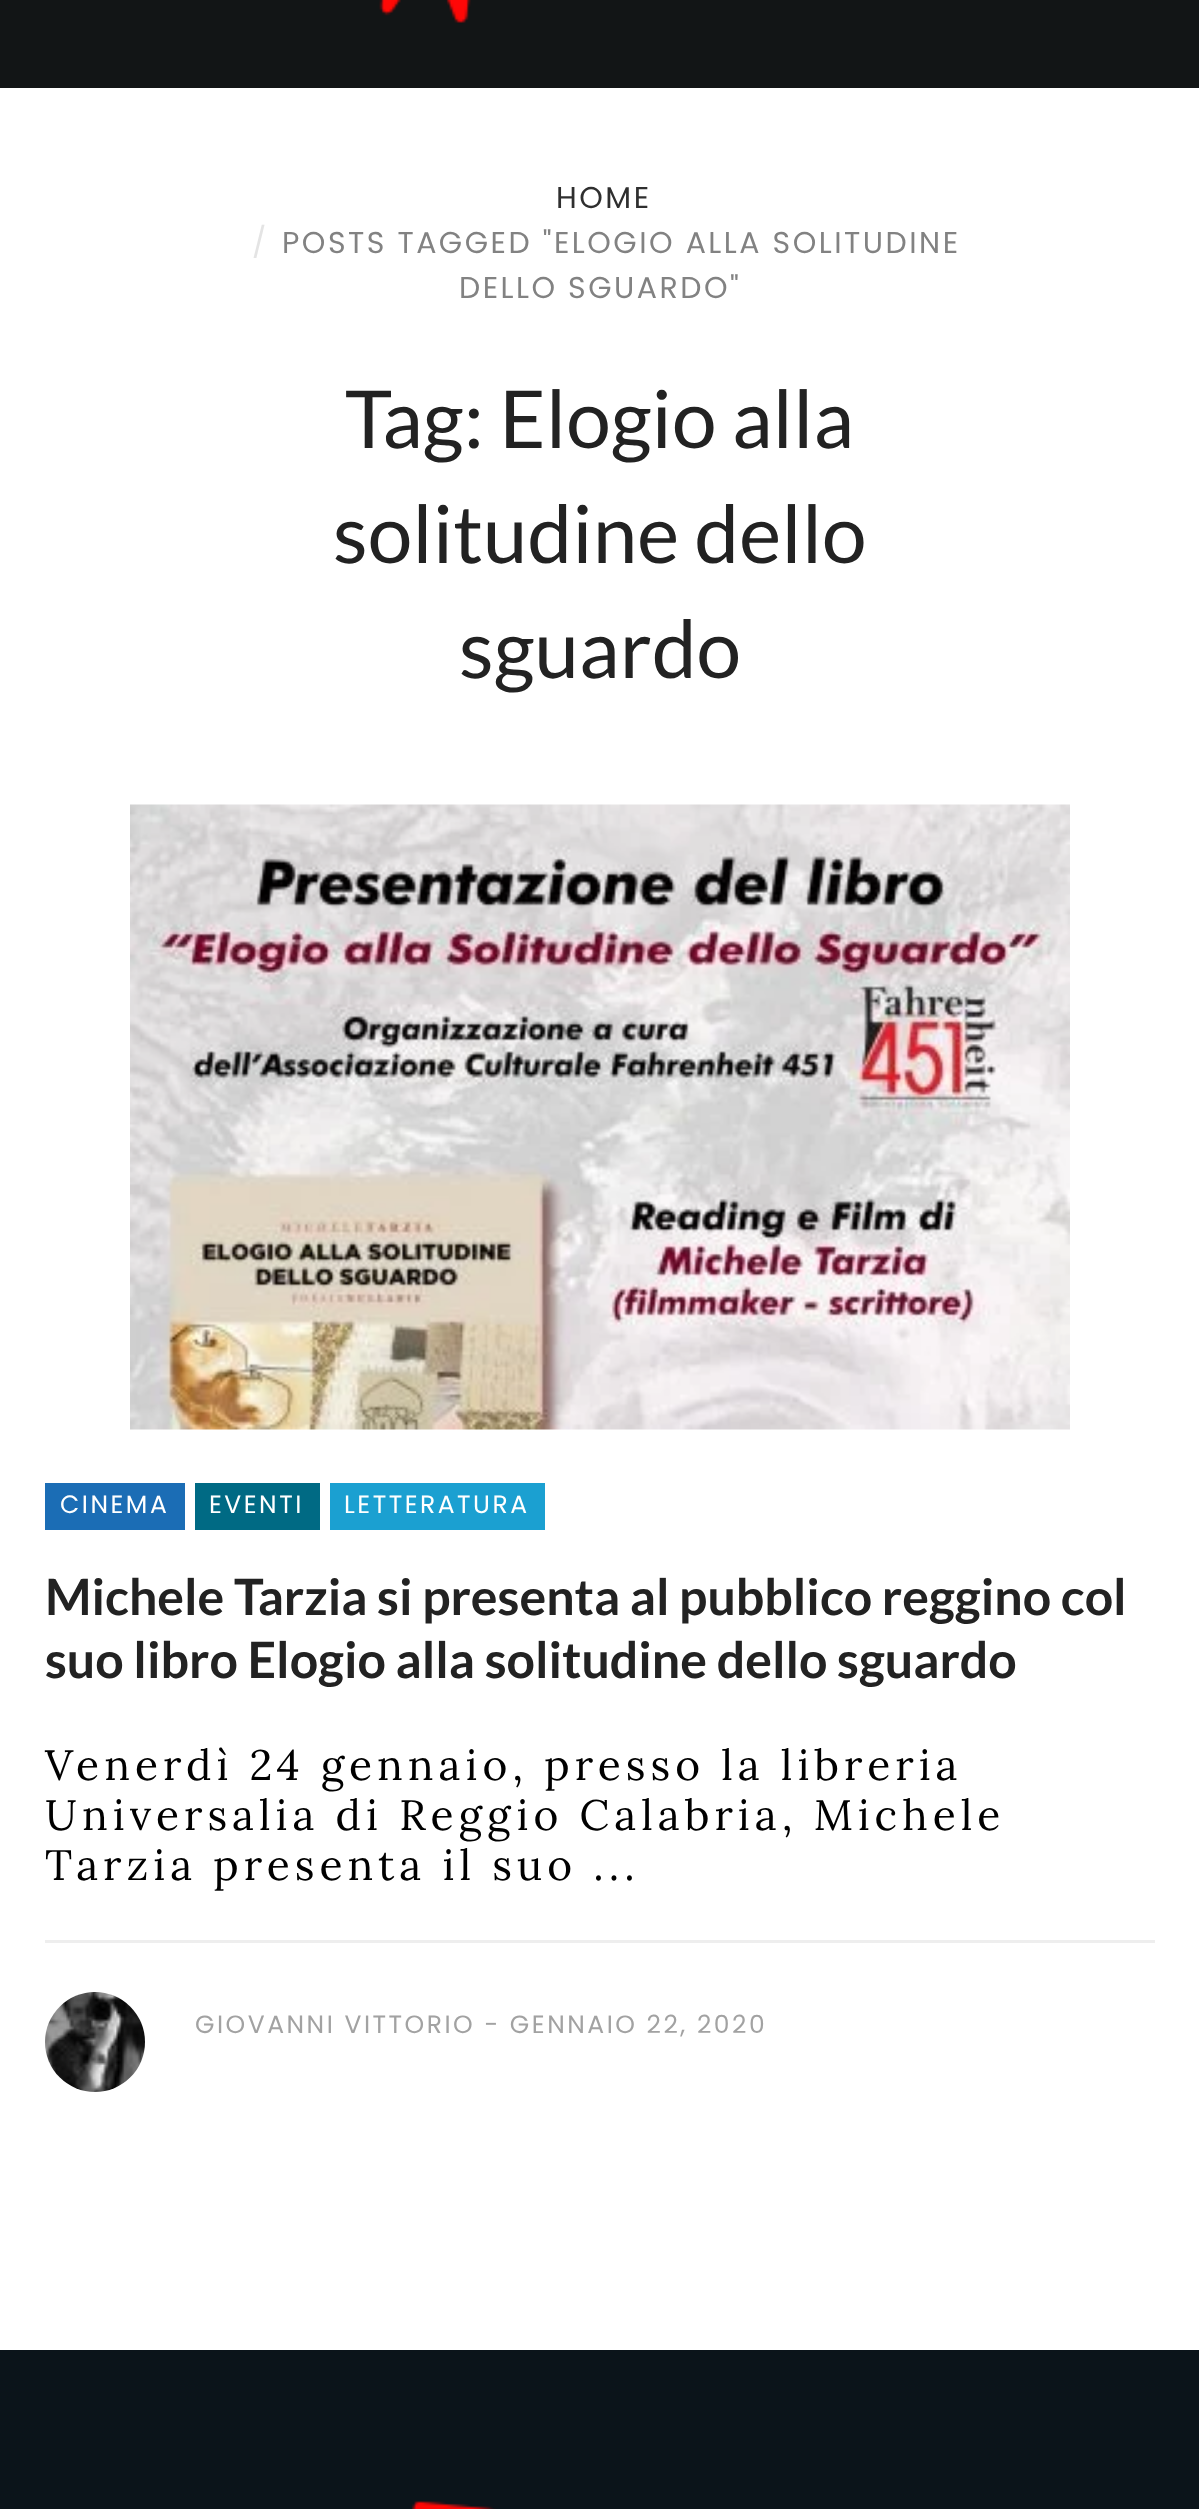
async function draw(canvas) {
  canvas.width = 1199
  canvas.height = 2509
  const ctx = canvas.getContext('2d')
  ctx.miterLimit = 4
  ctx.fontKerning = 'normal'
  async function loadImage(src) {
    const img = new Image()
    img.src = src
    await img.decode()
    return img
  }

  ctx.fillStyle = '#fff'
  ctx.fillRect(0, 0, 1199, 2509)
  ctx.fillStyle = '#121516'
  ctx.fillRect(0, 0, 1199, 88)
  ctx.drawImage(await loadImage('image0.png'), 379, 0, 92, 23)
  ctx.letterSpacing = '2.5px'
  ctx.font = '30px Poppins'
  ctx.fillStyle = '#2f2f2f'
  ctx.fillText('HOME', 556, 208)
  ctx.fillStyle = '#e4e4e4'
  ctx.fillText('/', 252, 253)
  ctx.fillStyle = '#828282'
  ctx.fillText('POSTS TAGGED "ELOGIO ALLA SOLITUDINE', 282, 253)
  ctx.fillText('DELLO SGUARDO"', 459, 298)
  ctx.letterSpacing = '0px'
  ctx.font = '80px Lato'
  ctx.fillStyle = '#222'
  ctx.fillText('Tag: Elogio alla', 345, 448)
  ctx.fillText('solitudine dello', 333, 563)
  ctx.fillText('sguardo', 459, 678)
  ctx.drawImage(await loadImage('image1.png'), 130, 804, 940, 626)
  ctx.fillStyle = '#1b6db5'
  ctx.fillRect(45, 1483, 140, 47)
  ctx.letterSpacing = '2.5px'
  ctx.font = '25px Poppins'
  ctx.fillStyle = '#fff'
  ctx.fillText('CINEMA', 60, 1513)
  ctx.fillStyle = '#006a84'
  ctx.fillRect(195, 1483, 125, 47)
  ctx.fillStyle = '#fff'
  ctx.fillText('EVENTI', 209, 1513)
  ctx.fillStyle = '#1ba0d1'
  ctx.fillRect(330, 1483, 215, 47)
  ctx.fillStyle = '#fff'
  ctx.fillText('LETTERATURA', 344, 1513)
  ctx.letterSpacing = '0px'
  ctx.font = 'bold 50px Lato'
  ctx.fillStyle = '#222'
  ctx.fillText('Michele Tarzia si presenta al pubblico reggino col', 45, 1615)
  ctx.fillText('suo libro Elogio alla solitudine dello sguardo', 45, 1678)
  ctx.letterSpacing = '5px'
  ctx.font = '42.5px Lora'
  ctx.fillStyle = '#000'
  ctx.fillText('Venerdì 24 gennaio, presso la libreria', 45, 1780)
  ctx.fillText('Universalia di Reggio Calabria, Michele', 45, 1830)
  ctx.fillText('Tarzia presenta il suo ...', 45, 1880)
  ctx.fillStyle = '#eee'
  ctx.fillRect(45, 1940, 1110, 3)
  ctx.drawImage(await loadImage('image2.png'), 45, 1992, 100, 100)
  ctx.letterSpacing = '2.5px'
  ctx.font = '25px Poppins'
  ctx.fillStyle = '#a2a2a2'
  ctx.fillText('GIOVANNI VITTORIO - GENNAIO 22, 2020', 195, 2033)
  ctx.fillStyle = '#0b141a'
  ctx.fillRect(0, 2350, 1199, 159)
  ctx.drawImage(await loadImage('image3.png'), 411, 2501, 85, 8)
}

draw(document.querySelector('canvas'))
